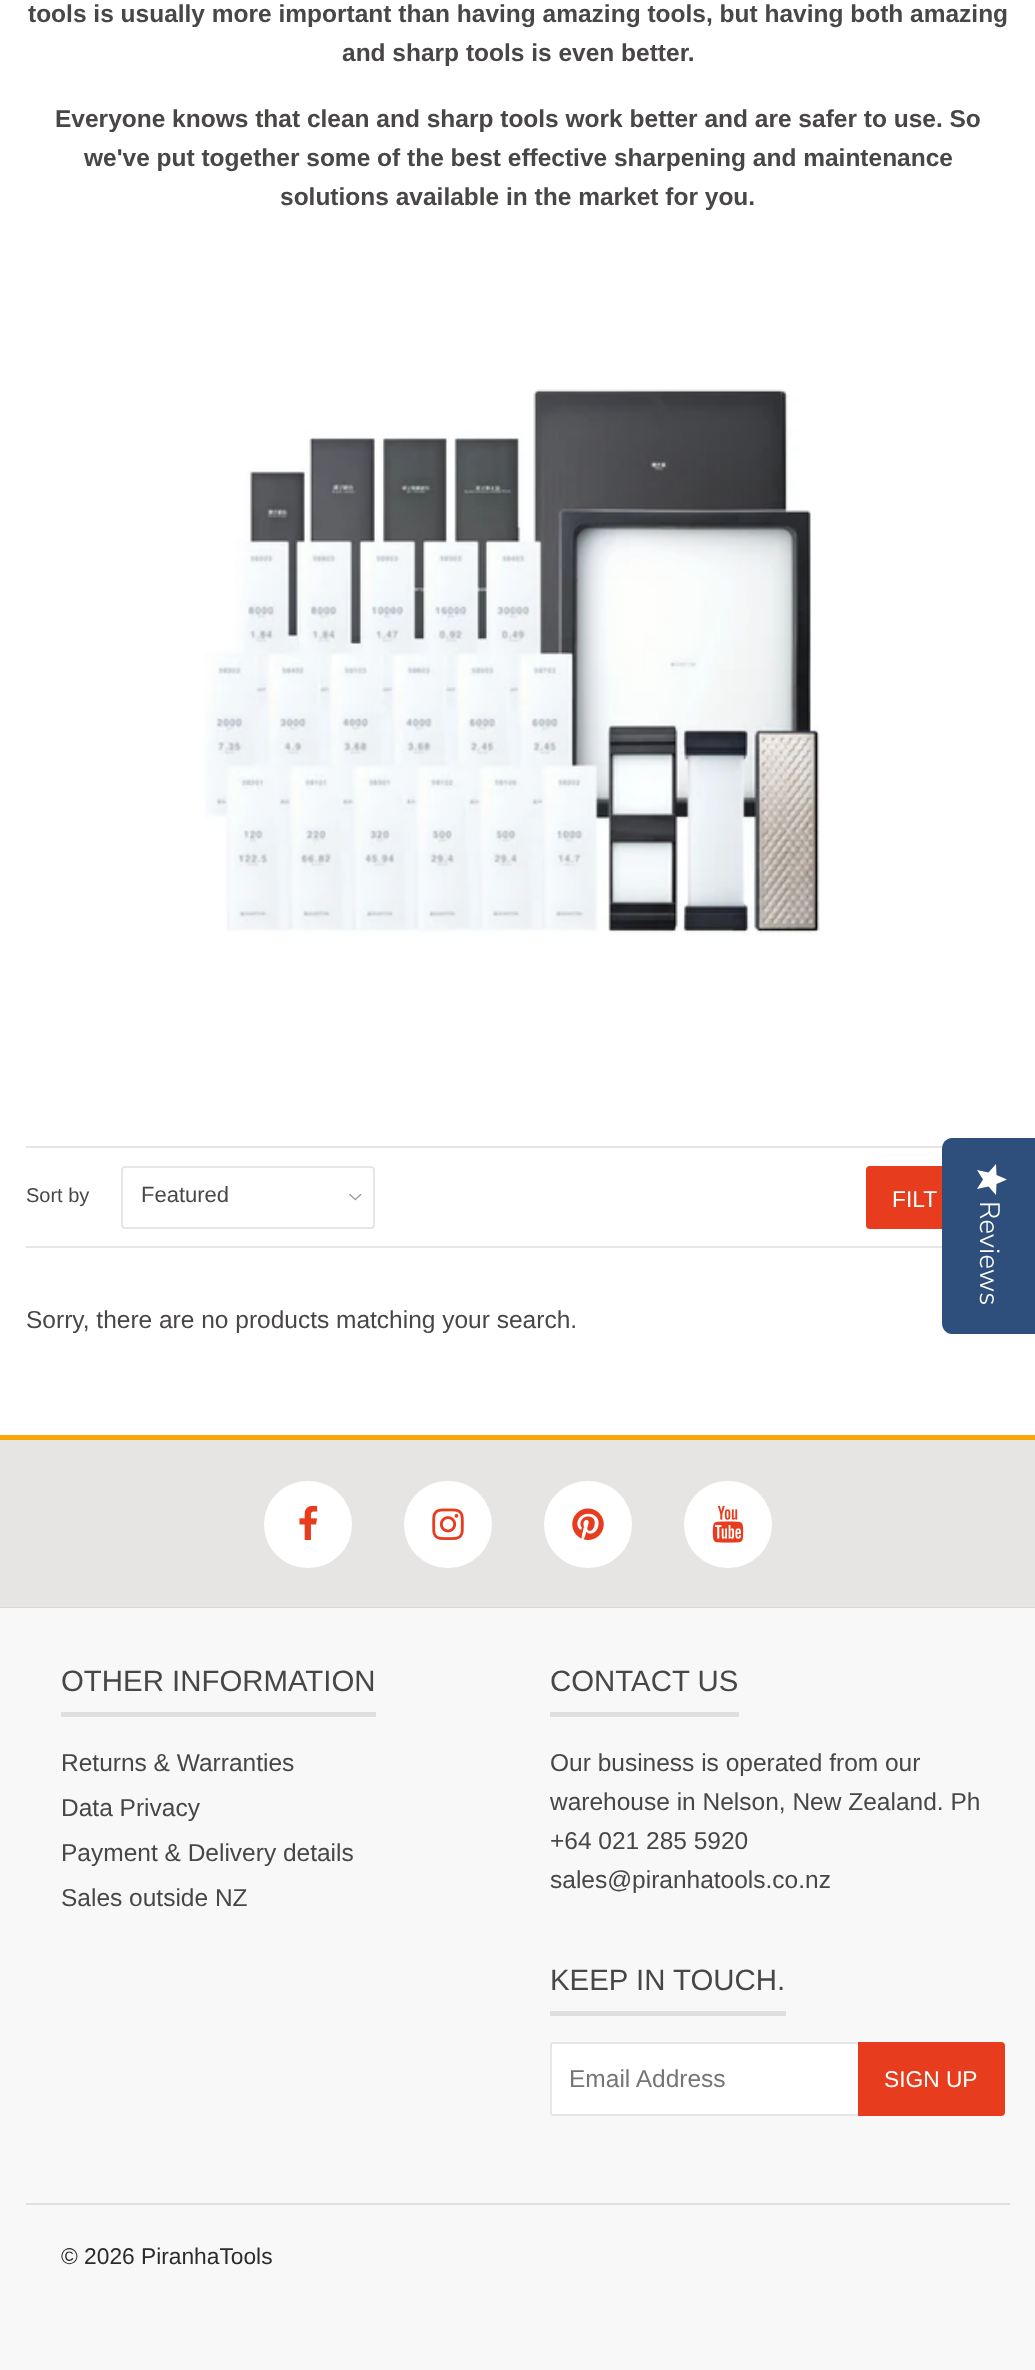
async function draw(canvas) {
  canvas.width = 1035
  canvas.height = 2370
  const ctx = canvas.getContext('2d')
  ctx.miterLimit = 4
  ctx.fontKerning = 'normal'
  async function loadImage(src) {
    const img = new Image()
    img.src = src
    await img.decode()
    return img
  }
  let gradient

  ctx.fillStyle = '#fff'
  ctx.fillRect(0, 0, 1035, 2370)
  ctx.font = 'bold 24.5px Liberation Sans'
  ctx.fillStyle = '#494646'
  ctx.fillText('tools is usually more important than having amazing tools, but having both amazing', 28, 22)
  ctx.fillText('and sharp tools is even better.', 342, 61)
  ctx.fillText('Everyone knows that clean and sharp tools work better and are safer to use. So', 55, 127)
  ctx.fillText('we\'ve put together some of the best effective sharpening and maintenance', 84, 166)
  ctx.fillText('solutions available in the market for you.', 280, 205)
  ctx.drawImage(await loadImage('image0.png'), 204, 389, 616, 546)
  ctx.fillStyle = '#e6e6e6'
  ctx.fillRect(26, 1146, 917, 2)
  ctx.fillRect(26, 1246, 916, 2)
  ctx.font = '20px Liberation Sans'
  ctx.fillStyle = '#494646'
  ctx.fillText('Sort by', 26, 1202)
  ctx.drawImage(await loadImage('image1.png'), 349, 1194, 13, 7)
  ctx.beginPath()
  ctx.roundRect(122, 1167, 252, 61, 3)
  ctx.strokeStyle = '#e6e6e6'
  ctx.lineWidth = 2
  ctx.stroke()
  ctx.font = '22px Liberation Sans'
  ctx.fillText('Featured', 141, 1202)
  ctx.fillStyle = '#e73c1e'
  ctx.beginPath()
  ctx.roundRect(866, 1166, 144, 63, 4)
  ctx.fill()
  ctx.font = '22.75px Liberation Sans'
  ctx.fillStyle = '#fffffb'
  ctx.fillText('FILT', 892, 1207)
  ctx.font = '24.5px Liberation Sans'
  ctx.fillStyle = '#494646'
  ctx.fillText('Sorry, there are no products matching your search.', 26, 1328)
  ctx.fillStyle = '#e7e4e4'
  ctx.fillRect(0, 1440, 1035, 167)
  ctx.fillStyle = '#f7a704'
  ctx.fillRect(0, 1435, 1035, 5)
  ctx.fillStyle = '#dbd7d7'
  ctx.fillRect(0, 1607, 1035, 1)
  ctx.fillStyle = '#fff'
  ctx.beginPath()
  ctx.roundRect(264, 1481, 88, 87, 43.5)
  ctx.fill()
  ctx.drawImage(await loadImage('image2.png'), 299, 1505, 19, 35)
  ctx.beginPath()
  ctx.roundRect(404, 1481, 88, 87, 43.5)
  ctx.fill()
  ctx.drawImage(await loadImage('image3.png'), 432, 1508, 32, 32)
  ctx.beginPath()
  ctx.roundRect(544, 1481, 88, 87, 43.5)
  ctx.fill()
  ctx.drawImage(await loadImage('image4.png'), 572, 1508, 32, 32)
  ctx.beginPath()
  ctx.roundRect(684, 1481, 88, 87, 43.5)
  ctx.fill()
  ctx.drawImage(await loadImage('image5.png'), 712, 1505, 32, 38)
  ctx.fillStyle = '#f8f8f8'
  ctx.fillRect(0, 1608, 1035, 762)
  ctx.fillStyle = '#dfdfdf'
  ctx.fillRect(61, 1712, 315, 5)
  ctx.font = '29.4px Liberation Sans'
  ctx.fillStyle = '#494646'
  ctx.fillText('OTHER INFORMATION', 61, 1691)
  ctx.font = '24.5px Liberation Sans'
  ctx.fillText('Returns & Warranties', 61, 1771)
  ctx.fillText('Data Privacy', 61, 1816)
  ctx.fillText('Payment & Delivery details', 61, 1861)
  ctx.fillText('Sales outside NZ', 61, 1906)
  ctx.fillStyle = '#dfdfdf'
  ctx.fillRect(550, 1712, 189, 5)
  ctx.font = '29.4px Liberation Sans'
  ctx.fillStyle = '#494646'
  ctx.fillText('CONTACT US', 550, 1691)
  ctx.font = '24.5px Liberation Sans'
  ctx.fillText('Our business is operated from our', 550, 1771)
  ctx.fillText('warehouse in Nelson, New Zealand. Ph', 550, 1810)
  ctx.fillText('+64 021 285 5920', 550, 1849)
  ctx.fillText('sales@piranhatools.co.nz', 550, 1888)
  ctx.fillStyle = '#dfdfdf'
  ctx.fillRect(550, 2011, 236, 5)
  ctx.font = '29.4px Liberation Sans'
  ctx.fillStyle = '#494646'
  ctx.fillText('KEEP IN TOUCH.', 550, 1990)
  ctx.fillStyle = '#fff'
  ctx.beginPath()
  ctx.roundRect(550, 2042, 308, 74, [4, 0, 0, 4])
  ctx.fill()
  ctx.fillStyle = '#e6e6e6'
  ctx.fillRect(551, 2042, 307, 2)
  ctx.fillRect(551, 2114, 307, 2)
  ctx.fillRect(550, 2044, 2, 70)
  ctx.font = '24.5px Liberation Sans'
  ctx.fillStyle = '#757575'
  ctx.fillText('Email Address', 569, 2087)
  ctx.fillStyle = '#e73c1e'
  ctx.beginPath()
  ctx.roundRect(858, 2042, 147, 74, [0, 4, 4, 0])
  ctx.fill()
  ctx.font = '22.75px Liberation Sans'
  ctx.fillStyle = '#fffffb'
  ctx.fillText('SIGN UP', 884, 2087)
  ctx.fillStyle = '#dfdfdf'
  ctx.fillRect(26, 2203, 984, 2)
  ctx.fillStyle = '#2b2b2b'
  ctx.fillText('© 2026 PiranhaTools', 61, 2264)
  ctx.fillStyle = '#2e4f7c'
  ctx.beginPath()
  ctx.moveTo(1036, 1138)
  ctx.lineTo(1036, 1334)
  ctx.lineTo(952, 1334)
  ctx.bezierCurveTo(946, 1334, 942, 1329, 942, 1323)
  ctx.lineTo(942, 1149)
  ctx.bezierCurveTo(942, 1143, 946, 1138, 952, 1138)
  ctx.closePath()
  ctx.fill()
  gradient = ctx.createLinearGradient(1007, 1164, 1007, 1195)
  gradient.addColorStop(1, '#fff')
  gradient.addColorStop(1, '#eaeaea')
  ctx.fillStyle = gradient
  ctx.beginPath()
  ctx.moveTo(983, 1179.5)
  ctx.lineTo(977, 1189)
  ctx.lineTo(988.5, 1186.5)
  ctx.lineTo(996, 1195)
  ctx.lineTo(996.5, 1184)
  ctx.lineTo(1007, 1179.5)
  ctx.lineTo(996.5, 1175)
  ctx.lineTo(996, 1164)
  ctx.lineTo(988.5, 1172.5)
  ctx.lineTo(977, 1170)
  ctx.closePath()
  ctx.fill()
  ctx.font = '300 28px Nunito Sans'
  ctx.fillStyle = '#fffffb'
  ctx.save()
  ctx.translate(980, 1201)
  ctx.rotate(90 * Math.PI / 180)
  ctx.fillText('Reviews', 0, 0)
  ctx.restore()
}

draw(document.querySelector('canvas'))
